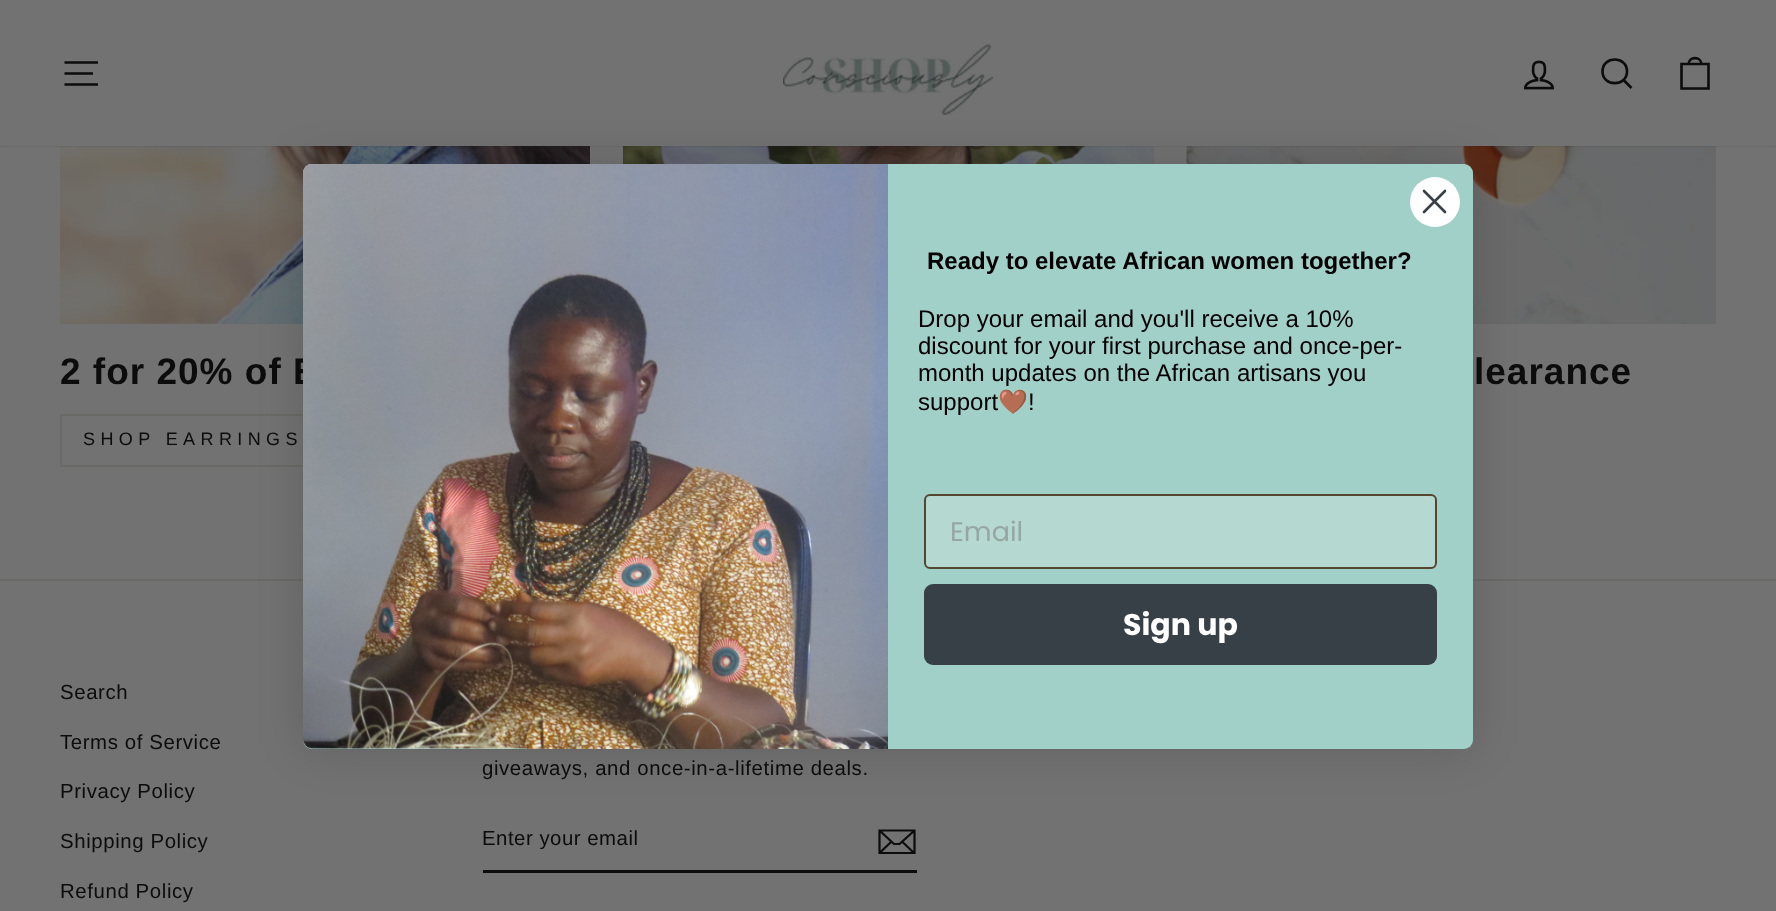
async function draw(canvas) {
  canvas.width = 1776
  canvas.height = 911
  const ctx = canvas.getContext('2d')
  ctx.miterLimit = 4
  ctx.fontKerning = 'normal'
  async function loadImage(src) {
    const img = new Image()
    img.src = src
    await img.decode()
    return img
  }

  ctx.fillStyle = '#727272'
  ctx.fillRect(0, 0, 1776, 911)
  ctx.fillStyle = '#686868'
  ctx.fillRect(1153, 146, 1, 18)
  ctx.drawImage(await loadImage('image3.png'), 623, 146, 531, 18)
  ctx.fillRect(60, 323, 243, 1)
  ctx.drawImage(await loadImage('image4.png'), 60, 146, 530, 178)
  ctx.fillRect(1473, 146, 243, 178)
  ctx.drawImage(await loadImage('image5.png'), 1186, 146, 530, 178)
  ctx.fillStyle = '#0c0c0c33'
  ctx.filter = 'blur(1px)'
  ctx.beginPath()
  ctx.rect(0, 0, 1776, 146)
  ctx.fill()
  ctx.filter = 'none'
  ctx.fillStyle = '#727272'
  ctx.fillRect(0, 0, 1776, 146)
  ctx.drawImage(await loadImage('image1.png'), 783, 44, 210, 71)
  ctx.strokeStyle = '#696966'
  ctx.lineWidth = 2
  ctx.strokeRect(61, 415, 264, 51)
  ctx.fillStyle = '#696966'
  ctx.fillRect(0, 579, 1776, 2)
  ctx.fillStyle = '#00000026'
  ctx.filter = 'blur(22.5px)'
  ctx.beginPath()
  ctx.roundRect(303, 164, 1170, 585, 9)
  ctx.fill()
  ctx.filter = 'none'
  ctx.letterSpacing = '1px'
  ctx.font = 'bold 37px Arimo'
  ctx.fillStyle = '#0c0c0c'
  ctx.fillText('2 for 20% of E', 60, 384)
  ctx.fillStyle = '#a1d0c9'
  ctx.beginPath()
  ctx.roundRect(303, 164, 1170, 585, 9)
  ctx.fill()
  ctx.fillStyle = '#fff'
  ctx.beginPath()
  ctx.arc(1435, 202, 25, 0, 2 * Math.PI)
  ctx.fill()
  ctx.beginPath()
  ctx.moveTo(1424, 191)
  ctx.lineTo(1445, 212)
  ctx.moveTo(1424, 212)
  ctx.lineTo(1445, 191)
  ctx.closePath()
  ctx.strokeStyle = '#373f47'
  ctx.lineWidth = 2.6
  ctx.lineCap = 'round'
  ctx.lineJoin = 'round'
  ctx.stroke()
  ctx.drawImage(await loadImage('image0.png'), 303, 164, 585, 585)
  ctx.letterSpacing = '0px'
  ctx.font = 'bold 24px Arimo'
  ctx.fillStyle = '#000'
  ctx.fillText('Ready to elevate African women together?', 927, 269)
  ctx.font = '24px Arimo'
  ctx.fillText('Drop your email and you\'ll receive a 10%', 918, 327)
  ctx.fillText('discount for your first purchase and once-per-', 918, 354)
  ctx.fillText('month updates on the African artisans you', 918, 381)
  ctx.fillText('support', 918, 410)
  ctx.font = '24px Noto Color Emoji'
  ctx.fillText('🤎', 998, 410)
  ctx.font = '24px Arimo'
  ctx.fillText('!', 1028, 410)
  ctx.fillStyle = '#b5d8d0'
  ctx.beginPath()
  ctx.roundRect(925, 495, 511, 73, 5)
  ctx.fill()
  ctx.strokeStyle = '#54462f'
  ctx.lineWidth = 2
  ctx.lineJoin = 'miter'
  ctx.stroke()
  ctx.font = '27px Poppins'
  ctx.fillStyle = '#96a7a3'
  ctx.fillText('Email', 950, 541)
  ctx.fillStyle = '#373f47'
  ctx.beginPath()
  ctx.roundRect(924, 584, 513, 81, 9)
  ctx.fill()
  ctx.font = 'bold 30px Poppins'
  ctx.fillStyle = '#fff'
  ctx.fillText('Sign up', 1123, 635)
  ctx.beginPath()
  ctx.moveTo(64.5, 62.5)
  ctx.lineTo(98, 62.5)
  ctx.moveTo(64.5, 73.5)
  ctx.lineTo(93, 73.5)
  ctx.moveTo(64.5, 84.5)
  ctx.lineTo(98, 84.5)
  ctx.strokeStyle = '#0c0c0c'
  ctx.lineWidth = 2.6
  ctx.lineCap = 'butt'
  ctx.stroke()
  ctx.drawImage(await loadImage('image2.png'), 1523, 60, 32, 30)
  ctx.beginPath()
  ctx.moveTo(1627, 71.5)
  ctx.bezierCurveTo(1627, 87, 1602.5, 87, 1602.5, 71.5)
  ctx.bezierCurveTo(1602.5, 55.5, 1627, 55.5, 1627, 71.5)
  ctx.closePath()
  ctx.moveTo(1631.5, 88)
  ctx.lineTo(1623.5, 80)
  ctx.stroke()
  ctx.beginPath()
  ctx.moveTo(1681.5, 64)
  ctx.lineTo(1708.5, 64)
  ctx.lineTo(1708.5, 88.5)
  ctx.lineTo(1681.5, 88.5)
  ctx.closePath()
  ctx.moveTo(1688.5, 64.5)
  ctx.bezierCurveTo(1688.5, 56, 1701.5, 56, 1701.5, 64.5)
  ctx.stroke()
  ctx.letterSpacing = '5.4px'
  ctx.font = '18px Arimo'
  ctx.fillStyle = '#0c0c0c'
  ctx.fillText('SHOP EARRINGS', 83, 445)
  ctx.letterSpacing = '1px'
  ctx.font = 'bold 37px Arimo'
  ctx.fillText('learance', 1474, 384)
  ctx.letterSpacing = '0.6px'
  ctx.font = '20.4px Arimo'
  ctx.fillText('Search', 60, 699)
  ctx.fillText('Terms of Service', 60, 749)
  ctx.fillText('Privacy Policy', 60, 798)
  ctx.fillText('Shipping Policy', 60, 848)
  ctx.fillText('Refund Policy', 60, 898)
  ctx.fillText('giveaways, and once-in-a-lifetime deals.', 482, 775)
  ctx.fillRect(483, 870, 434, 3)
  ctx.save()
  ctx.beginPath()
  ctx.rect(483, 827, 366, 22)
  ctx.clip()
  ctx.letterSpacing = '0.5px'
  ctx.fillText('Enter your email', 482, 845)
  ctx.restore()
  ctx.beginPath()
  ctx.moveTo(914.5, 853)
  ctx.lineTo(879.5, 853)
  ctx.lineTo(879.5, 830.5)
  ctx.lineTo(914.5, 830.5)
  ctx.closePath()
  ctx.moveTo(879.5, 830.5)
  ctx.lineTo(894, 844)
  ctx.lineTo(899.5, 844)
  ctx.lineTo(914.5, 830.5)
  ctx.moveTo(891.5, 841.5)
  ctx.lineTo(880, 852.5)
  ctx.moveTo(914, 853)
  ctx.lineTo(902, 841.5)
  ctx.lineWidth = 2.2
  ctx.stroke()
}

draw(document.querySelector('canvas'))
